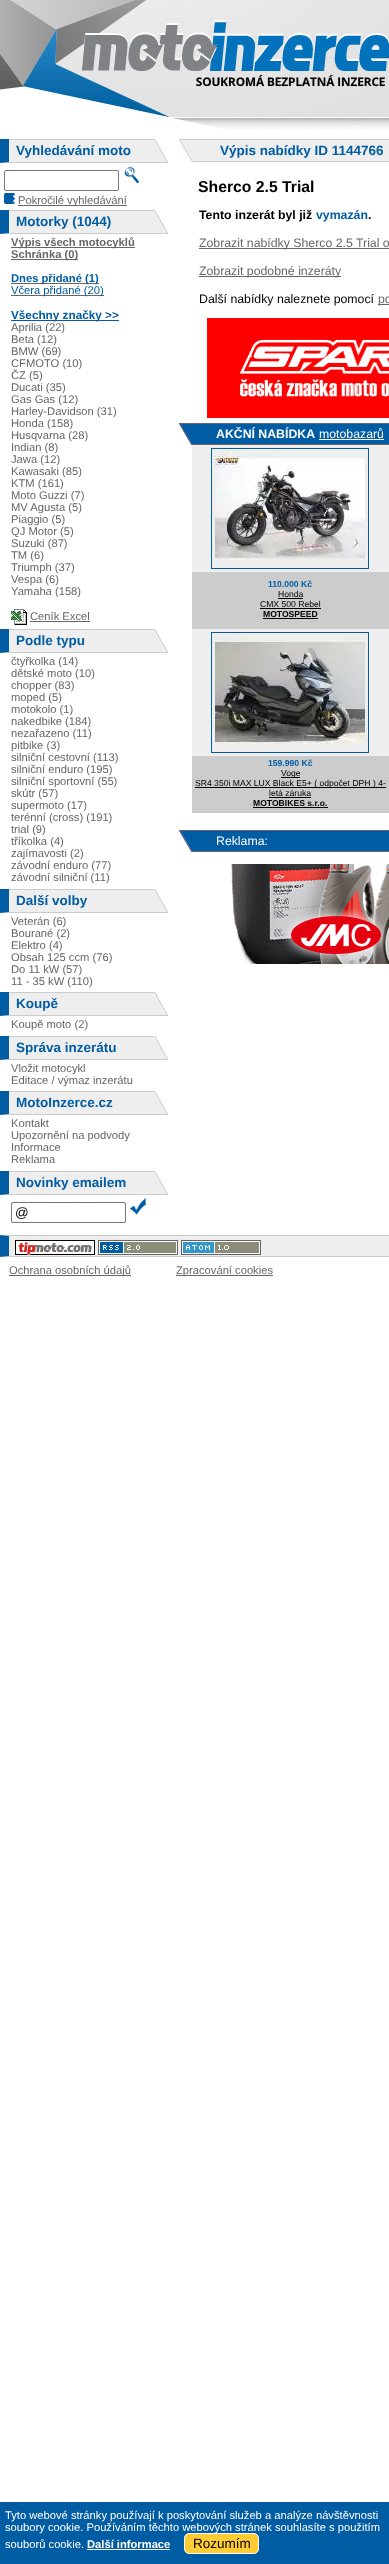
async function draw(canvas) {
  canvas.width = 389
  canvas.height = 2564
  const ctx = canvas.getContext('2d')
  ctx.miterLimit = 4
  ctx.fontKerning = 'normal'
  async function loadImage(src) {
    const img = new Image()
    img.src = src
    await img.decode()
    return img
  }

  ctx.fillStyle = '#fff'
  ctx.fillRect(0, 0, 389, 2564)
  ctx.drawImage(await loadImage('image0.png'), 0, 0, 389, 130)
  ctx.fillStyle = '#eee'
  ctx.fillRect(0, 140, 166, 23)
  ctx.fillStyle = '#ccc'
  ctx.fillRect(9, 139, 145, 1)
  ctx.drawImage(await loadImage('image1.png'), 154, 139, 14, 23)
  ctx.beginPath()
  ctx.moveTo(168, 163)
  ctx.lineTo(0, 163)
  ctx.lineTo(9, 162)
  ctx.lineTo(168, 162)
  ctx.closePath()
  ctx.fill()
  ctx.fillStyle = '#005ca3'
  ctx.beginPath()
  ctx.moveTo(0, 163)
  ctx.lineTo(0, 139)
  ctx.lineTo(9, 139)
  ctx.lineTo(9, 162)
  ctx.closePath()
  ctx.fill()
  ctx.font = 'bold 13.5px Liberation Sans'
  ctx.fillText('Vyhledávání moto', 16, 155)
  ctx.beginPath()
  ctx.roundRect(4.5, 170.5, 114, 20, 1.5)
  ctx.strokeStyle = '#767676'
  ctx.stroke()
  ctx.drawImage(await loadImage('image2.png'), 124, 167, 15, 16)
  ctx.drawImage(await loadImage('image3.png'), 4, 193, 11, 11)
  ctx.fillStyle = '#666'
  ctx.fillRect(18, 205, 109, 1)
  ctx.font = '11.2px Liberation Sans'
  ctx.fillText('Pokročilé vyhledávání', 18, 204)
  ctx.fillStyle = '#eee'
  ctx.fillRect(0, 211, 166, 23)
  ctx.fillStyle = '#ccc'
  ctx.fillRect(9, 210, 145, 1)
  ctx.drawImage(await loadImage('image1.png'), 154, 210, 14, 23)
  ctx.beginPath()
  ctx.moveTo(168, 234)
  ctx.lineTo(0, 234)
  ctx.lineTo(9, 233)
  ctx.lineTo(168, 233)
  ctx.closePath()
  ctx.fill()
  ctx.fillStyle = '#005ca3'
  ctx.beginPath()
  ctx.moveTo(0, 234)
  ctx.lineTo(0, 210)
  ctx.lineTo(9, 210)
  ctx.lineTo(9, 233)
  ctx.closePath()
  ctx.fill()
  ctx.font = 'bold 13.5px Liberation Sans'
  ctx.fillText('Motorky (1044)', 16, 226)
  ctx.fillStyle = '#666'
  ctx.fillRect(11, 247, 124, 1)
  ctx.font = 'bold 11.2px Liberation Sans'
  ctx.fillText('Výpis všech motocyklů', 11, 246)
  ctx.fillRect(11, 259, 67, 1)
  ctx.fillText('Schránka (0)', 11, 258)
  ctx.fillRect(11, 283, 88, 1)
  ctx.fillStyle = '#005ca3'
  ctx.fillText('Dnes přidané (1)', 11, 282)
  ctx.fillStyle = '#666'
  ctx.fillRect(11, 295, 93, 1)
  ctx.font = '11.2px Liberation Sans'
  ctx.fillStyle = '#005ca3'
  ctx.fillText('Včera přidané (20)', 11, 294)
  ctx.fillRect(11, 320, 108, 1)
  ctx.font = 'bold 11.75px Liberation Sans'
  ctx.fillText('Všechny značky >>', 11, 319)
  ctx.font = '11.2px Liberation Sans'
  ctx.fillStyle = '#666'
  ctx.fillText('Aprilia (22)', 11, 331)
  ctx.fillText('Beta (12)', 11, 343)
  ctx.fillText('BMW (69)', 11, 355)
  ctx.fillText('CFMOTO (10)', 11, 367)
  ctx.fillText('ČZ (5)', 11, 379)
  ctx.fillText('Ducati (35)', 11, 391)
  ctx.fillText('Gas Gas (12)', 11, 403)
  ctx.fillText('Harley-Davidson (31)', 11, 415)
  ctx.fillText('Honda (158)', 11, 427)
  ctx.fillText('Husqvarna (28)', 11, 439)
  ctx.fillText('Indian (8)', 11, 451)
  ctx.fillText('Jawa (12)', 11, 463)
  ctx.fillText('Kawasaki (85)', 11, 475)
  ctx.fillText('KTM (161)', 11, 487)
  ctx.fillText('Moto Guzzi (7)', 11, 499)
  ctx.fillText('MV Agusta (5)', 11, 511)
  ctx.fillText('Piaggio (5)', 11, 523)
  ctx.fillText('QJ Motor (5)', 11, 535)
  ctx.fillText('Suzuki (87)', 11, 547)
  ctx.fillText('TM (6)', 11, 559)
  ctx.fillText('Triumph (37)', 11, 571)
  ctx.fillText('Vespa (6)', 11, 583)
  ctx.fillText('Yamaha (158)', 11, 595)
  ctx.drawImage(await loadImage('image4.png'), 11, 609, 16, 16)
  ctx.fillText('Ceník Excel', 30, 620)
  ctx.fillRect(30, 621, 60, 1)
  ctx.fillStyle = '#eee'
  ctx.fillRect(0, 630, 166, 23)
  ctx.fillStyle = '#ccc'
  ctx.fillRect(9, 629, 145, 1)
  ctx.drawImage(await loadImage('image1.png'), 154, 629, 14, 23)
  ctx.beginPath()
  ctx.moveTo(168, 653)
  ctx.lineTo(0, 653)
  ctx.lineTo(9, 652)
  ctx.lineTo(168, 652)
  ctx.closePath()
  ctx.fill()
  ctx.fillStyle = '#005ca3'
  ctx.beginPath()
  ctx.moveTo(0, 653)
  ctx.lineTo(0, 629)
  ctx.lineTo(9, 629)
  ctx.lineTo(9, 652)
  ctx.closePath()
  ctx.fill()
  ctx.font = 'bold 13.5px Liberation Sans'
  ctx.fillText('Podle typu', 16, 645)
  ctx.font = '11.2px Liberation Sans'
  ctx.fillStyle = '#666'
  ctx.fillText('čtyřkolka (14)', 11, 665)
  ctx.fillText('dětské moto (10)', 11, 677)
  ctx.fillText('chopper (83)', 11, 689)
  ctx.fillText('moped (5)', 11, 701)
  ctx.fillText('motokolo (1)', 11, 713)
  ctx.fillText('nakedbike (184)', 11, 725)
  ctx.fillText('nezařazeno (11)', 11, 737)
  ctx.fillText('pitbike (3)', 11, 749)
  ctx.fillText('silniční cestovní (113)', 11, 761)
  ctx.fillText('silniční enduro (195)', 11, 773)
  ctx.fillText('silniční sportovní (55)', 11, 785)
  ctx.fillText('skútr (57)', 11, 797)
  ctx.fillText('supermoto (17)', 11, 809)
  ctx.fillText('terénní (cross) (191)', 11, 821)
  ctx.fillText('trial (9)', 11, 833)
  ctx.fillText('tříkolka (4)', 11, 845)
  ctx.fillText('zajímavosti (2)', 11, 857)
  ctx.fillText('závodní enduro (77)', 11, 869)
  ctx.fillText('závodní silniční (11)', 11, 881)
  ctx.fillStyle = '#eee'
  ctx.fillRect(0, 890, 166, 23)
  ctx.fillStyle = '#ccc'
  ctx.fillRect(9, 889, 145, 1)
  ctx.drawImage(await loadImage('image1.png'), 154, 889, 14, 23)
  ctx.beginPath()
  ctx.moveTo(168, 913)
  ctx.lineTo(0, 913)
  ctx.lineTo(9, 912)
  ctx.lineTo(168, 912)
  ctx.closePath()
  ctx.fill()
  ctx.fillStyle = '#005ca3'
  ctx.beginPath()
  ctx.moveTo(0, 913)
  ctx.lineTo(0, 889)
  ctx.lineTo(9, 889)
  ctx.lineTo(9, 912)
  ctx.closePath()
  ctx.fill()
  ctx.font = 'bold 13.5px Liberation Sans'
  ctx.fillText('Další volby', 16, 905)
  ctx.font = '11.2px Liberation Sans'
  ctx.fillStyle = '#666'
  ctx.fillText('Veterán (6)', 11, 925)
  ctx.fillText('Bourané (2)', 11, 937)
  ctx.fillText('Elektro (4)', 11, 949)
  ctx.fillText('Obsah 125 ccm (76)', 11, 961)
  ctx.fillText('Do 11 kW (57)', 11, 973)
  ctx.fillText('11 - 35 kW (110)', 11, 985)
  ctx.fillStyle = '#eee'
  ctx.fillRect(0, 993, 166, 23)
  ctx.fillStyle = '#ccc'
  ctx.fillRect(9, 992, 145, 1)
  ctx.drawImage(await loadImage('image1.png'), 154, 992, 14, 23)
  ctx.beginPath()
  ctx.moveTo(168, 1016)
  ctx.lineTo(0, 1016)
  ctx.lineTo(9, 1015)
  ctx.lineTo(168, 1015)
  ctx.closePath()
  ctx.fill()
  ctx.fillStyle = '#005ca3'
  ctx.beginPath()
  ctx.moveTo(0, 1016)
  ctx.lineTo(0, 992)
  ctx.lineTo(9, 992)
  ctx.lineTo(9, 1015)
  ctx.closePath()
  ctx.fill()
  ctx.font = 'bold 13.5px Liberation Sans'
  ctx.fillText('Koupě', 16, 1008)
  ctx.font = '11.2px Liberation Sans'
  ctx.fillStyle = '#666'
  ctx.fillText('Koupě moto (2)', 11, 1028)
  ctx.fillStyle = '#eee'
  ctx.fillRect(0, 1037, 166, 23)
  ctx.fillStyle = '#ccc'
  ctx.fillRect(9, 1036, 145, 1)
  ctx.drawImage(await loadImage('image1.png'), 154, 1036, 14, 23)
  ctx.beginPath()
  ctx.moveTo(168, 1060)
  ctx.lineTo(0, 1060)
  ctx.lineTo(9, 1059)
  ctx.lineTo(168, 1059)
  ctx.closePath()
  ctx.fill()
  ctx.fillStyle = '#005ca3'
  ctx.beginPath()
  ctx.moveTo(0, 1060)
  ctx.lineTo(0, 1036)
  ctx.lineTo(9, 1036)
  ctx.lineTo(9, 1059)
  ctx.closePath()
  ctx.fill()
  ctx.font = 'bold 13.5px Liberation Sans'
  ctx.fillText('Správa inzerátu', 16, 1052)
  ctx.font = '11.2px Liberation Sans'
  ctx.fillStyle = '#666'
  ctx.fillText('Vložit motocykl', 11, 1072)
  ctx.fillText('Editace / výmaz inzerátu', 11, 1084)
  ctx.fillStyle = '#eee'
  ctx.fillRect(0, 1092, 166, 23)
  ctx.fillStyle = '#ccc'
  ctx.fillRect(9, 1091, 145, 1)
  ctx.drawImage(await loadImage('image1.png'), 154, 1091, 14, 23)
  ctx.beginPath()
  ctx.moveTo(168, 1115)
  ctx.lineTo(0, 1115)
  ctx.lineTo(9, 1114)
  ctx.lineTo(168, 1114)
  ctx.closePath()
  ctx.fill()
  ctx.fillStyle = '#005ca3'
  ctx.beginPath()
  ctx.moveTo(0, 1115)
  ctx.lineTo(0, 1091)
  ctx.lineTo(9, 1091)
  ctx.lineTo(9, 1114)
  ctx.closePath()
  ctx.fill()
  ctx.font = 'bold 13.5px Liberation Sans'
  ctx.fillText('MotoInzerce.cz', 16, 1107)
  ctx.font = '11.2px Liberation Sans'
  ctx.fillStyle = '#666'
  ctx.fillText('Kontakt', 11, 1127)
  ctx.fillText('Upozornění na podvody', 11, 1139)
  ctx.fillText('Informace', 11, 1151)
  ctx.fillText('Reklama', 11, 1163)
  ctx.fillStyle = '#eee'
  ctx.fillRect(0, 1172, 166, 23)
  ctx.fillStyle = '#ccc'
  ctx.fillRect(9, 1171, 145, 1)
  ctx.drawImage(await loadImage('image1.png'), 154, 1171, 14, 23)
  ctx.beginPath()
  ctx.moveTo(168, 1195)
  ctx.lineTo(0, 1195)
  ctx.lineTo(9, 1194)
  ctx.lineTo(168, 1194)
  ctx.closePath()
  ctx.fill()
  ctx.fillStyle = '#005ca3'
  ctx.beginPath()
  ctx.moveTo(0, 1195)
  ctx.lineTo(0, 1171)
  ctx.lineTo(9, 1171)
  ctx.lineTo(9, 1194)
  ctx.closePath()
  ctx.fill()
  ctx.font = 'bold 13.5px Liberation Sans'
  ctx.fillText('Novinky emailem', 16, 1187)
  ctx.beginPath()
  ctx.roundRect(11.5, 1202.5, 114, 20, 1.5)
  ctx.stroke()
  ctx.font = '13.5px Liberation Sans'
  ctx.fillStyle = '#000'
  ctx.fillText('@', 15, 1217)
  ctx.drawImage(await loadImage('image5.png'), 130, 1198, 16, 17)
  ctx.fillStyle = '#eee'
  ctx.fillRect(181, 140, 208, 21)
  ctx.fillStyle = '#ccc'
  ctx.fillRect(193, 161, 196, 1)
  ctx.drawImage(await loadImage('image6.png'), 179, 139, 210, 23)
  ctx.font = 'bold 13.5px Liberation Sans'
  ctx.fillStyle = '#005ca3'
  ctx.fillText('Výpis nabídky ID 1144766', 220, 155)
  ctx.font = 'bold 15.75px Liberation Sans'
  ctx.fillStyle = '#000'
  ctx.fillText('Sherco 2.5 Trial', 198, 192)
  ctx.font = 'bold 12.3px Liberation Sans'
  ctx.fillText('Tento inzerát byl již', 199, 219)
  ctx.fillStyle = '#005ca3'
  ctx.fillText('vymazán', 316, 219)
  ctx.fillStyle = '#000'
  ctx.fillText('.', 368, 219)
  ctx.fillStyle = '#666'
  ctx.fillRect(199, 248, 190, 1)
  ctx.font = '12.3px Liberation Sans'
  ctx.fillText('Zobrazit nabídky Sherco 2.5 Trial o', 199, 247)
  ctx.fillRect(199, 276, 142, 1)
  ctx.fillText('Zobrazit podobné inzeráty', 199, 275)
  ctx.fillStyle = '#000'
  ctx.fillText('Další nabídky naleznete pomocí', 199, 303)
  ctx.fillStyle = '#666'
  ctx.fillRect(378, 304, 11, 1)
  ctx.fillText('po', 378, 303)
  ctx.drawImage(await loadImage('image7.png'), 207, 318, 182, 100)
  ctx.fillStyle = '#005ca3'
  ctx.fillRect(181, 424, 208, 20)
  ctx.fillStyle = '#726363'
  ctx.fillRect(192, 444, 197, 1)
  ctx.drawImage(await loadImage('image8.png'), 179, 423, 210, 22)
  ctx.font = 'bold 12.3px Liberation Sans'
  ctx.fillStyle = '#fff'
  ctx.fillText('AKČNÍ NABÍDKA', 216, 438)
  ctx.font = '12.3px Liberation Sans'
  ctx.fillText('motobazarů', 319, 438)
  ctx.fillRect(319, 439, 65, 1)
  ctx.fillStyle = '#eee'
  ctx.fillRect(192, 445, 197, 127)
  ctx.strokeStyle = '#005ca3'
  ctx.strokeRect(211.5, 448.5, 157, 120)
  ctx.drawImage(await loadImage('image9.png'), 215, 452, 150, 108)
  ctx.fillStyle = '#ccc'
  ctx.fillRect(192, 572, 197, 57)
  ctx.font = 'bold 8.6px Liberation Sans'
  ctx.fillStyle = '#005ca3'
  ctx.fillText('110.000 Kč', 268, 587)
  ctx.font = '8.6px Liberation Sans'
  ctx.fillStyle = '#000'
  ctx.fillText('Honda', 278, 597)
  ctx.fillRect(278, 598, 25, 1)
  ctx.fillText('CMX 500 Rebel', 260, 607)
  ctx.fillRect(260, 608, 61, 1)
  ctx.font = 'bold 8.6px Liberation Sans'
  ctx.fillText('MOTOSPEED', 263, 617)
  ctx.fillRect(263, 618, 55, 1)
  ctx.fillStyle = '#eee'
  ctx.fillRect(192, 629, 197, 127)
  ctx.strokeRect(211.5, 632.5, 157, 120)
  ctx.drawImage(await loadImage('image10.png'), 215, 636, 150, 112)
  ctx.fillStyle = '#ccc'
  ctx.fillRect(192, 756, 197, 57)
  ctx.fillStyle = '#005ca3'
  ctx.fillText('159.990 Kč', 268, 766)
  ctx.fillStyle = '#000'
  ctx.fillRect(281, 777, 19, 1)
  ctx.font = '8.6px Liberation Sans'
  ctx.fillText('Voge', 281, 776)
  ctx.fillRect(195, 787, 191, 1)
  ctx.fillText('SR4 350i MAX LUX Black E5+ ( odpočet DPH ) 4-', 195, 786)
  ctx.fillText('letá záruka', 269, 796)
  ctx.fillRect(269, 797, 42, 1)
  ctx.font = 'bold 8.6px Liberation Sans'
  ctx.fillText('MOTOBIKES s.r.o.', 253, 806)
  ctx.fillRect(253, 807, 75, 1)
  ctx.fillStyle = '#005ca3'
  ctx.fillRect(181, 831, 208, 20)
  ctx.fillStyle = '#726363'
  ctx.fillRect(192, 851, 197, 1)
  ctx.drawImage(await loadImage('image11.png'), 179, 830, 210, 22)
  ctx.font = '12.3px Liberation Sans'
  ctx.fillStyle = '#fff'
  ctx.fillText('Reklama:', 216, 845)
  ctx.drawImage(await loadImage('image12.png'), 231, 864, 158, 100)
  ctx.fillStyle = '#eee'
  ctx.fillRect(9, 1236, 380, 20)
  ctx.fillStyle = '#ccc'
  ctx.beginPath()
  ctx.moveTo(0, 1235)
  ctx.lineTo(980, 1235)
  ctx.lineTo(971, 1236)
  ctx.lineTo(9, 1236)
  ctx.closePath()
  ctx.fill()
  ctx.beginPath()
  ctx.moveTo(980, 1257)
  ctx.lineTo(0, 1257)
  ctx.lineTo(9, 1256)
  ctx.lineTo(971, 1256)
  ctx.closePath()
  ctx.fill()
  ctx.fillStyle = '#005ca3'
  ctx.beginPath()
  ctx.moveTo(0, 1257)
  ctx.lineTo(0, 1235)
  ctx.lineTo(9, 1236)
  ctx.lineTo(9, 1256)
  ctx.closePath()
  ctx.fill()
  ctx.drawImage(await loadImage('image13.png'), 15, 1240, 80, 15)
  ctx.drawImage(await loadImage('image14.png'), 98, 1240, 80, 15)
  ctx.drawImage(await loadImage('image15.png'), 181, 1240, 80, 15)
  ctx.fillStyle = '#666'
  ctx.fillRect(9, 1275, 122, 1)
  ctx.font = '11.2px Liberation Sans'
  ctx.fillText('Ochrana osobních údajů', 9, 1274)
  ctx.fillRect(176, 1275, 97, 1)
  ctx.fillText('Zpracování cookies', 176, 1274)
  ctx.fillStyle = '#005ca3'
  ctx.fillRect(0, 2502, 389, 62)
  ctx.fillStyle = '#fff'
  ctx.fillText('Tyto webové stránky používají k poskytování služeb a analýze návštěvnosti', 5, 2519)
  ctx.fillText('soubory cookie. Používáním těchto webových stránek souhlasíte s použitím', 5, 2531)
  ctx.fillText('souborů cookie.', 5, 2548)
  ctx.font = 'bold 11.2px Liberation Sans'
  ctx.fillText('Další informace', 87, 2548)
  ctx.fillRect(87, 2549, 83, 1)
  ctx.fillStyle = '#fc3'
  ctx.beginPath()
  ctx.roundRect(184.5, 2533.5, 74, 20, 4.5)
  ctx.fill()
  ctx.strokeStyle = '#fff'
  ctx.stroke()
  ctx.font = '13.5px Liberation Sans'
  ctx.fillStyle = '#000'
  ctx.fillText('Rozumím', 193, 2548)
}

draw(document.querySelector('canvas'))
